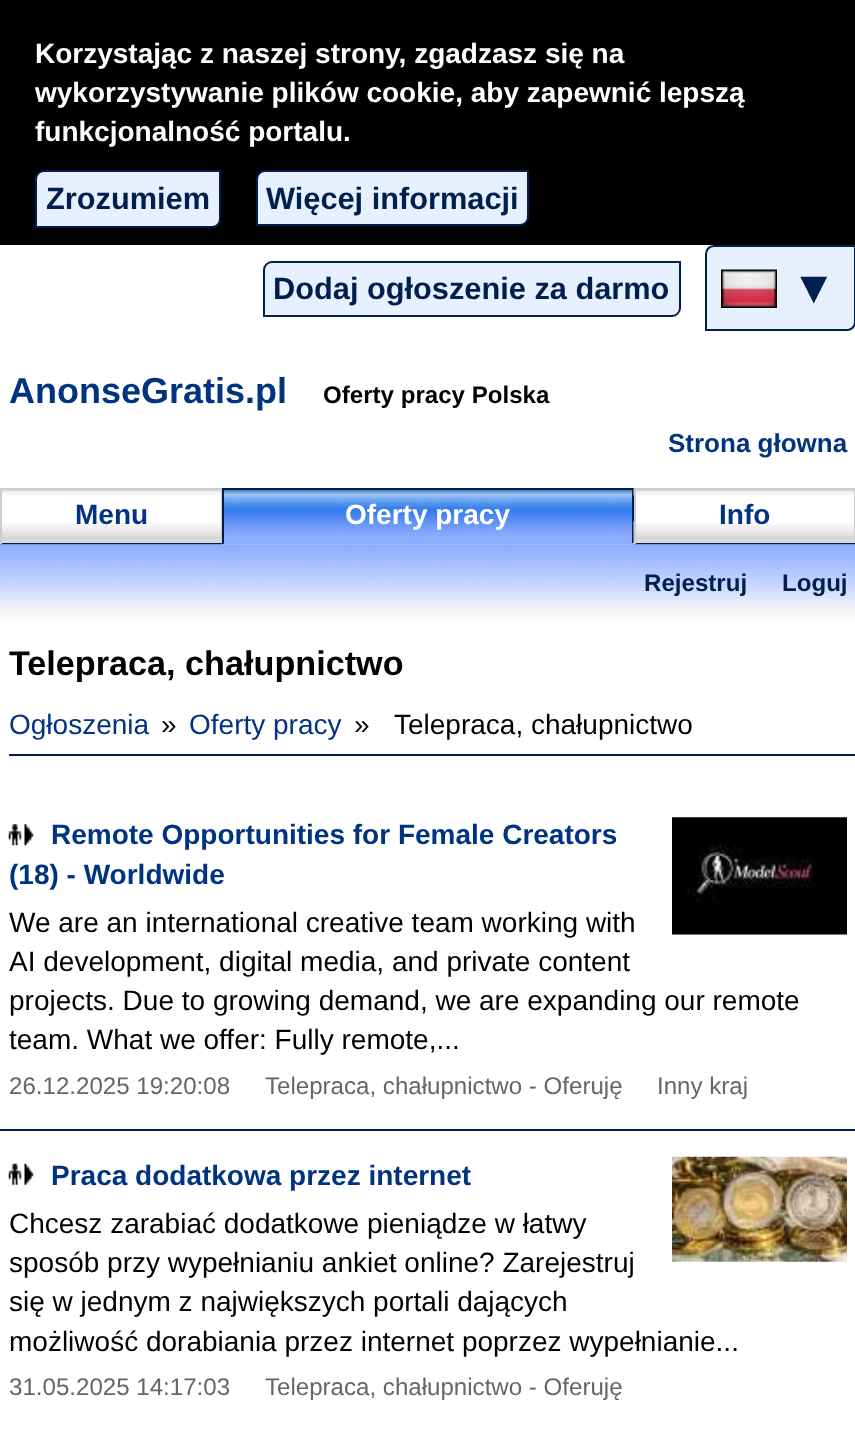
async function draw(canvas) {
  canvas.width = 855
  canvas.height = 1441
  const ctx = canvas.getContext('2d')
  ctx.miterLimit = 4
  ctx.fontKerning = 'normal'
  async function loadImage(src) {
    const img = new Image()
    img.src = src
    await img.decode()
    return img
  }

  ctx.fillStyle = '#fff'
  ctx.fillRect(0, 0, 855, 1441)
  ctx.fillStyle = '#000'
  ctx.fillRect(0, 0, 855, 245)
  ctx.font = 'bold 28px Liberation Sans'
  ctx.fillStyle = '#fff'
  ctx.fillText('Korzystając z naszej strony, zgadzasz się na', 35, 63)
  ctx.fillText('wykorzystywanie plików cookie, aby zapewnić lepszą', 35, 102)
  ctx.fillText('funkcjonalność portalu.', 35, 141)
  ctx.fillStyle = '#e6f0ff'
  ctx.beginPath()
  ctx.roundRect(36, 171, 184, 56, [8, 0, 8, 0])
  ctx.fill()
  ctx.strokeStyle = '#001f4d'
  ctx.lineWidth = 2
  ctx.stroke()
  ctx.font = 'bold 30.75px Liberation Sans'
  ctx.fillStyle = '#001f4d'
  ctx.fillText('Zrozumiem', 46, 209)
  ctx.fillStyle = '#e6f0ff'
  ctx.beginPath()
  ctx.roundRect(257, 171, 271, 54, [8, 0, 8, 0])
  ctx.fill()
  ctx.stroke()
  ctx.fillStyle = '#001f4d'
  ctx.fillText('Więcej informacji', 266, 209)
  ctx.fillStyle = '#e6f0ff'
  ctx.beginPath()
  ctx.roundRect(264, 262, 416, 54, [8, 0, 8, 0])
  ctx.fill()
  ctx.stroke()
  ctx.fillStyle = '#001f4d'
  ctx.fillText('Dodaj ogłoszenie za darmo', 273, 299)
  ctx.fillStyle = '#e6f0ff'
  ctx.beginPath()
  ctx.moveTo(714, 246)
  ctx.lineTo(855, 246)
  ctx.lineTo(855, 322)
  ctx.bezierCurveTo(855, 326.5, 851.5, 330, 847, 330)
  ctx.lineTo(706, 330)
  ctx.lineTo(706, 254)
  ctx.bezierCurveTo(706, 249.5, 709.5, 246, 714, 246)
  ctx.closePath()
  ctx.fill()
  ctx.stroke()
  ctx.drawImage(await loadImage('image0.png'), 721, 269, 56, 39)
  ctx.font = 'bold 46px Liberation Sans'
  ctx.fillStyle = '#001f4d'
  ctx.fillText('▼', 791, 303)
  ctx.font = 'bold 36px Liberation Sans'
  ctx.fillStyle = '#003380'
  ctx.fillText('AnonseGratis.pl', 9, 403)
  ctx.font = 'bold 24.1px Liberation Sans'
  ctx.fillStyle = '#000'
  ctx.fillText('Oferty pracy Polska', 323, 403)
  ctx.font = 'bold 26px Liberation Sans'
  ctx.fillStyle = '#003380'
  ctx.fillText('Strona głowna', 668, 452)
  ctx.drawImage(await loadImage('image1.png'), 2, 490, 219, 53)
  ctx.fillStyle = '#ccc'
  ctx.fillRect(0, 488, 222, 2)
  ctx.fillRect(221, 488, 1, 56)
  ctx.fillStyle = '#001f4d'
  ctx.fillRect(0, 543, 222, 2)
  ctx.fillStyle = '#ccc'
  ctx.fillRect(0, 488, 2, 56)
  ctx.font = 'bold 28px Liberation Sans'
  ctx.fillStyle = '#003380'
  ctx.fillText('Menu', 75, 524)
  ctx.drawImage(await loadImage('image2.png'), 224, 490, 408, 53)
  ctx.fillStyle = '#001f4d'
  ctx.fillRect(222, 488, 412, 2)
  ctx.fillRect(632, 488, 2, 56)
  ctx.fillStyle = '#8dadff'
  ctx.fillRect(222, 543, 412, 2)
  ctx.fillStyle = '#001f4d'
  ctx.fillRect(222, 488, 2, 56)
  ctx.fillStyle = '#fff'
  ctx.fillText('Oferty pracy', 345, 524)
  ctx.drawImage(await loadImage('image3.png'), 633, 488, 221, 57)
  ctx.fillStyle = '#ccc'
  ctx.fillRect(634, 488, 221, 2)
  ctx.fillRect(854, 488, 1, 56)
  ctx.fillStyle = '#001f4d'
  ctx.fillRect(634, 543, 221, 2)
  ctx.fillStyle = '#ccc'
  ctx.fillRect(634, 488, 2, 56)
  ctx.fillStyle = '#003380'
  ctx.fillText('Info', 719, 524)
  ctx.drawImage(await loadImage('image4.png'), 0, 544, 855, 75)
  ctx.font = 'bold 24.1px Liberation Sans'
  ctx.fillStyle = '#001f4d'
  ctx.fillText('Rejestruj', 644, 591)
  ctx.fillText('Loguj', 782, 591)
  ctx.font = 'bold 34.2px Liberation Sans'
  ctx.fillStyle = '#000'
  ctx.fillText('Telepraca, chałupnictwo', 9, 675)
  ctx.fillStyle = '#001f4d'
  ctx.fillRect(9, 754, 846, 2)
  ctx.font = '28px Liberation Sans'
  ctx.fillStyle = '#003380'
  ctx.fillText('Ogłoszenia', 9, 734)
  ctx.fillStyle = '#000'
  ctx.fillText('»', 161, 734)
  ctx.fillStyle = '#003380'
  ctx.fillText('Oferty pracy', 189, 734)
  ctx.fillStyle = '#000'
  ctx.fillText('»', 354, 734)
  ctx.fillText('Telepraca, chałupnictwo', 394, 734)
  ctx.fillStyle = '#001f4d'
  ctx.fillRect(0, 1129, 855, 2)
  ctx.drawImage(await loadImage('image5.png'), 8, 824, 26, 22)
  ctx.font = 'bold 28px Liberation Sans'
  ctx.fillStyle = '#003380'
  ctx.fillText('Remote Opportunities for Female Creators', 51, 844)
  ctx.drawImage(await loadImage('image6.png'), 672, 817, 175, 118)
  ctx.fillText('(18) - Worldwide', 9, 884)
  ctx.font = '28px Liberation Sans'
  ctx.fillStyle = '#000'
  ctx.fillText('We are an international creative team working with', 9, 932)
  ctx.fillText('AI development, digital media, and private content', 9, 971)
  ctx.fillText('projects. Due to growing demand, we are expanding our remote', 9, 1010)
  ctx.fillText('team. What we offer: Fully remote,...', 9, 1049)
  ctx.font = '24.1px Liberation Sans'
  ctx.fillStyle = '#666'
  ctx.fillText('26.12.2025 19:20:08', 9, 1094)
  ctx.fillText('Telepraca, chałupnictwo - Oferuję', 265, 1094)
  ctx.fillText('Inny kraj', 657, 1094)
  ctx.drawImage(await loadImage('image7.png'), 8, 1163, 26, 22)
  ctx.font = 'bold 28px Liberation Sans'
  ctx.fillStyle = '#003380'
  ctx.fillText('Praca dodatkowa przez internet', 51, 1185)
  ctx.drawImage(await loadImage('image8.png'), 672, 1156, 175, 106)
  ctx.font = '28px Liberation Sans'
  ctx.fillStyle = '#000'
  ctx.fillText('Chcesz zarabiać dodatkowe pieniądze w łatwy', 9, 1233)
  ctx.fillText('sposób przy wypełnianiu ankiet online? Zarejestruj', 9, 1272)
  ctx.fillText('się w jednym z największych portali dających', 9, 1311)
  ctx.fillText('możliwość dorabiania przez internet poprzez wypełnianie...', 9, 1351)
  ctx.font = '24.1px Liberation Sans'
  ctx.fillStyle = '#666'
  ctx.fillText('31.05.2025 14:17:03', 9, 1395)
  ctx.fillText('Telepraca, chałupnictwo - Oferuję', 265, 1395)
}

draw(document.querySelector('canvas'))
